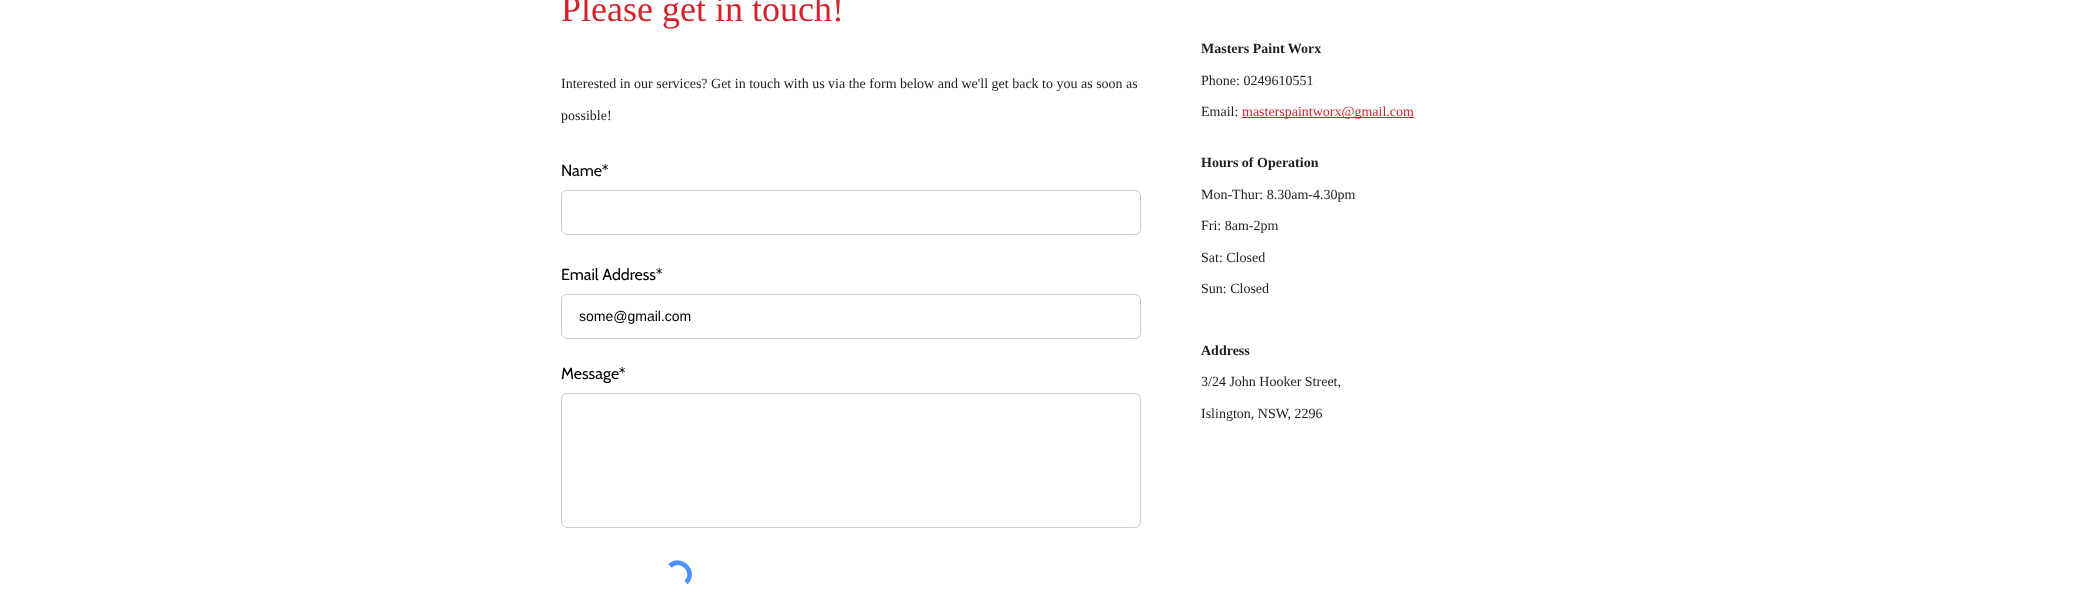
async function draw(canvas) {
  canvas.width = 2084
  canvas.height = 604
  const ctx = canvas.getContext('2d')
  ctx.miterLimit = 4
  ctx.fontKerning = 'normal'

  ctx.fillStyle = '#fff'
  ctx.fillRect(0, 0, 2084, 604)
  ctx.font = '36px Liberation Serif'
  ctx.fillStyle = '#d2232a'
  ctx.fillText('Please get in touch!', 561, 21)
  ctx.font = '14px Liberation Serif'
  ctx.fillStyle = '#211d1e'
  ctx.fillText('Interested in our services? Get in touch with us via the form below and we\'ll get back to you as soon as', 561, 88)
  ctx.fillText('possible!', 561, 120)
  ctx.font = '16px Cabin'
  ctx.fillStyle = '#000'
  ctx.fillText('Name*', 561, 176)
  ctx.beginPath()
  ctx.roundRect(561.5, 190.5, 579, 44, 5.5)
  ctx.strokeStyle = '#ccc'
  ctx.stroke()
  ctx.fillText('Email Address*', 561, 280)
  ctx.beginPath()
  ctx.roundRect(561.5, 294.5, 579, 44, 5.5)
  ctx.stroke()
  ctx.font = '14px Liberation Sans'
  ctx.fillText('some@gmail.com', 579, 321)
  ctx.font = '16px Cabin'
  ctx.fillText('Message*', 561, 379)
  ctx.beginPath()
  ctx.roundRect(561.5, 393.5, 579, 134, 5.5)
  ctx.stroke()
  ctx.beginPath()
  ctx.moveTo(670, 566)
  ctx.bezierCurveTo(680.5, 555.5, 697, 572, 686, 582.5)
  ctx.strokeStyle = '#4d90fe'
  ctx.lineWidth = 4.6
  ctx.stroke()
  ctx.font = 'bold 14px Liberation Serif'
  ctx.fillStyle = '#211d1e'
  ctx.fillText('Masters Paint Worx', 1201, 53)
  ctx.font = '14px Liberation Serif'
  ctx.fillText('Phone: 0249610551', 1201, 85)
  ctx.fillText('Email:', 1201, 116)
  ctx.fillStyle = '#d2232a'
  ctx.fillRect(1242, 117, 172, 1)
  ctx.fillText('masterspaintworx@gmail.com', 1242, 116)
  ctx.font = 'bold 14px Liberation Serif'
  ctx.fillStyle = '#211d1e'
  ctx.fillText('Hours of Operation', 1201, 167)
  ctx.font = '14px Liberation Serif'
  ctx.fillText('Mon-Thur: 8.30am-4.30pm', 1201, 199)
  ctx.fillText('Fri: 8am-2pm', 1201, 230)
  ctx.fillText('Sat: Closed', 1201, 262)
  ctx.fillText('Sun: Closed', 1201, 293)
  ctx.font = 'bold 14px Liberation Serif'
  ctx.fillText('Address', 1201, 355)
  ctx.font = '14px Liberation Serif'
  ctx.fillText('3/24 John Hooker Street,', 1201, 386)
  ctx.fillText('Islington, NSW, 2296', 1201, 418)
}

draw(document.querySelector('canvas'))
